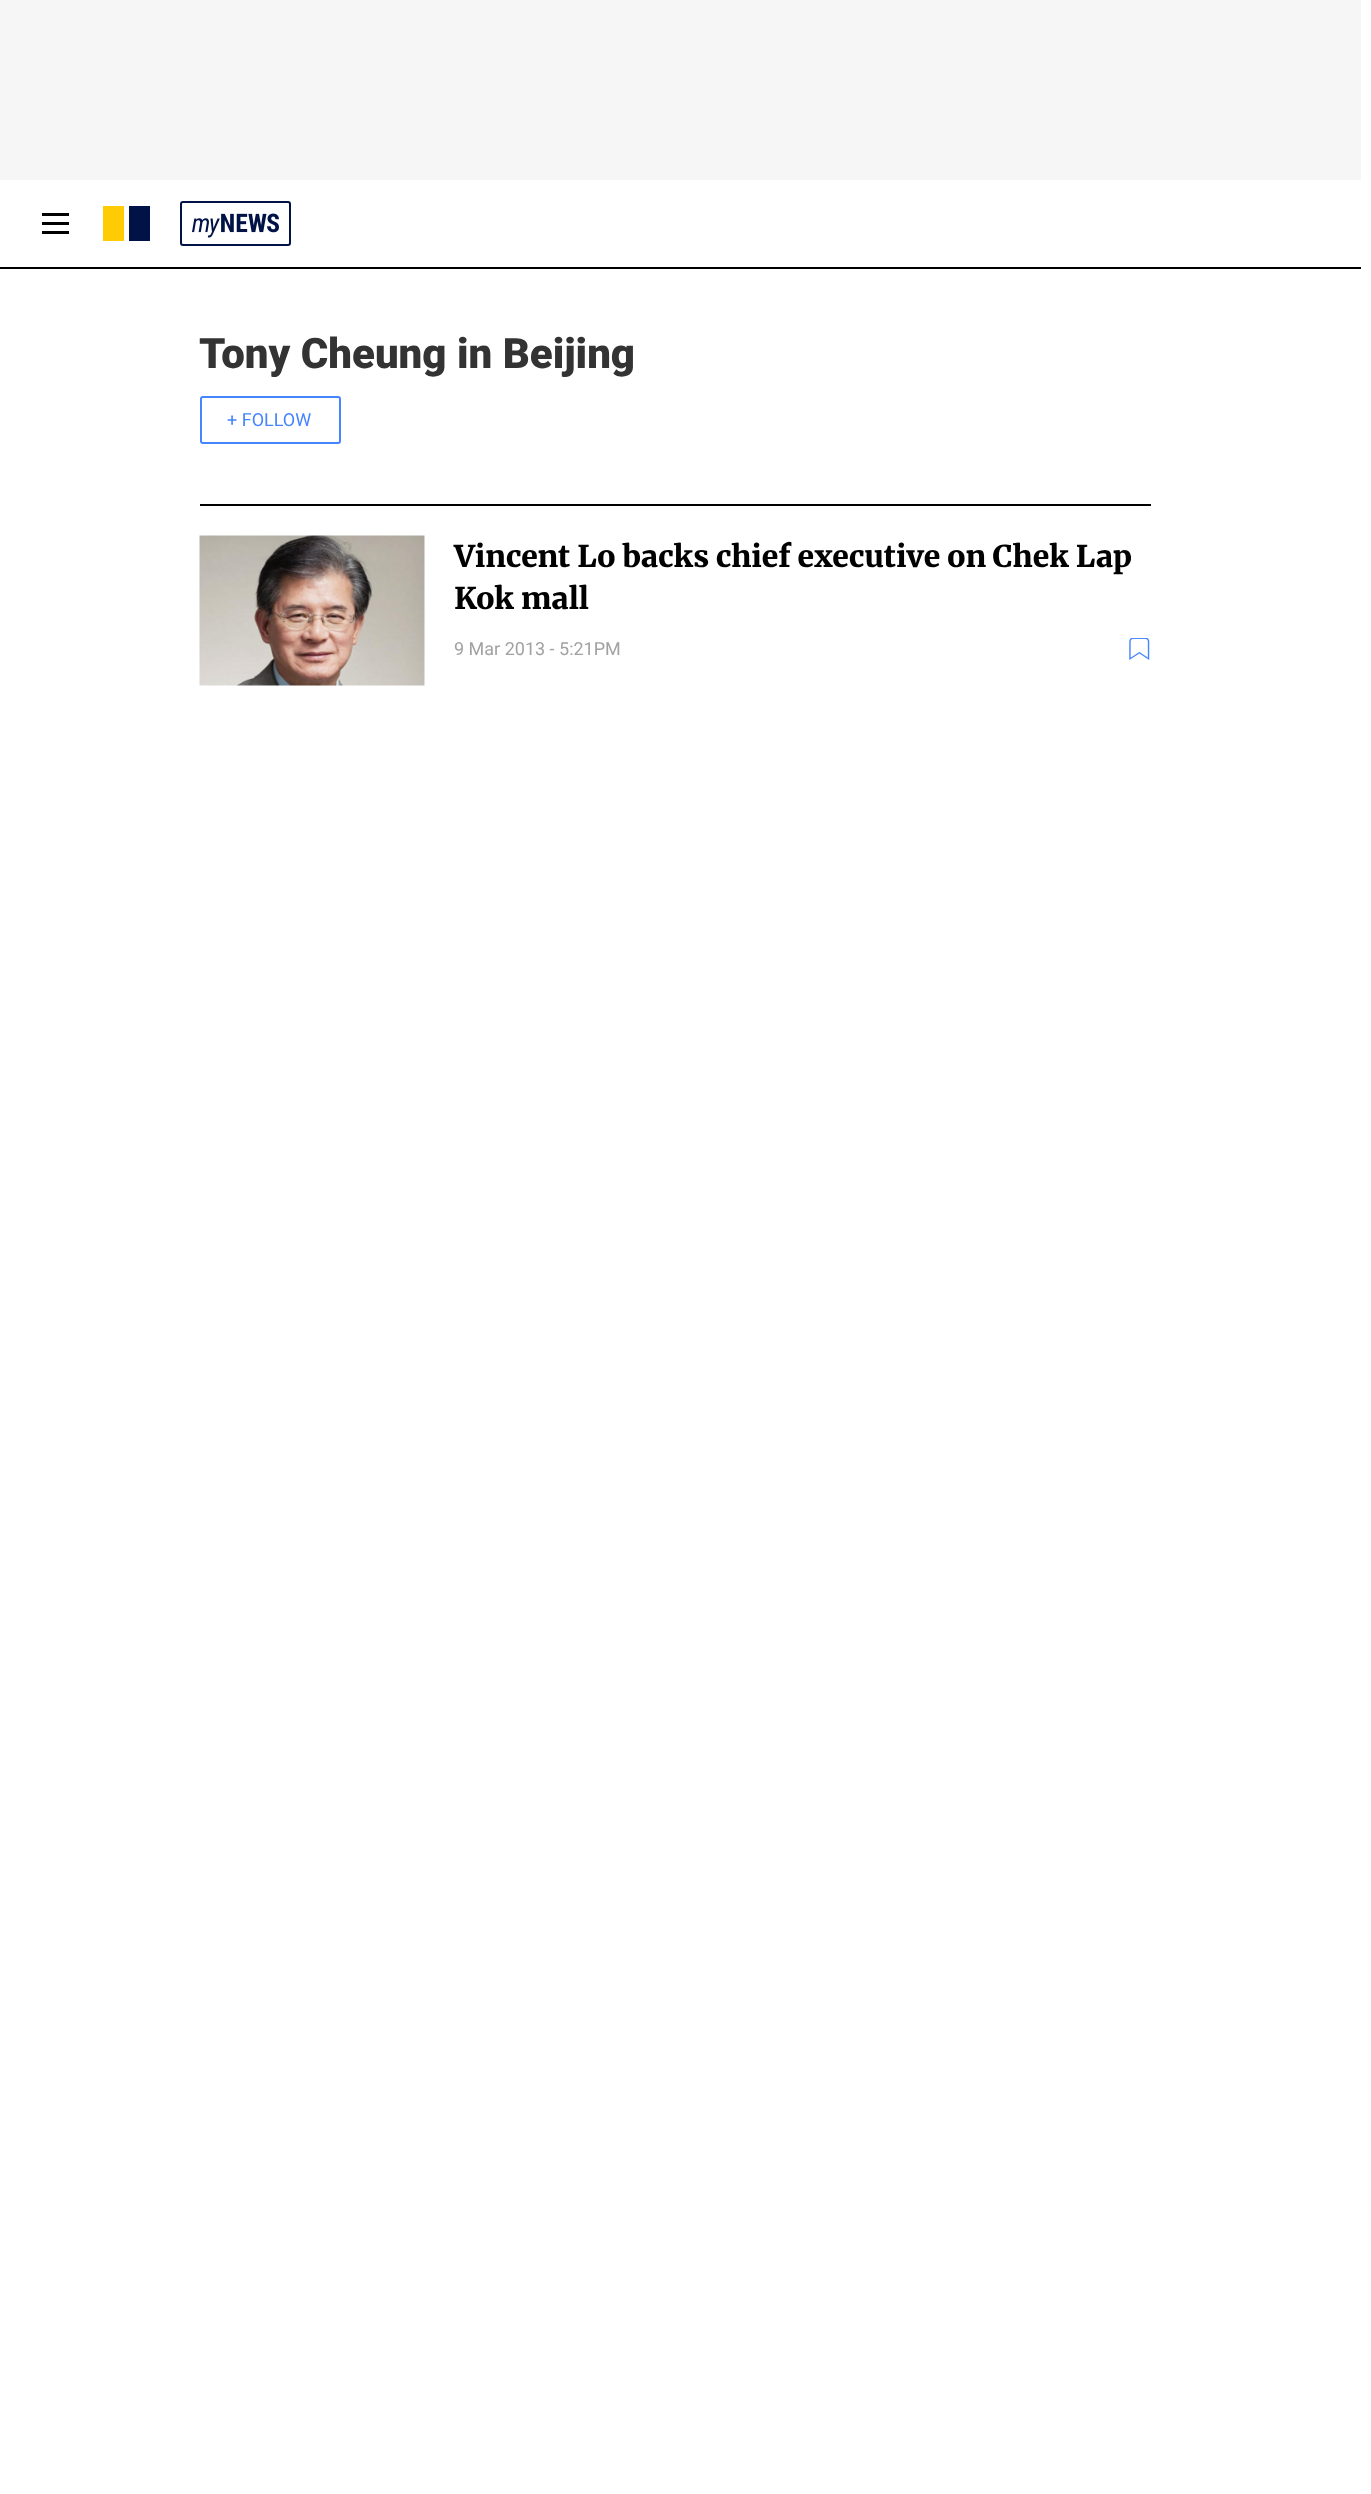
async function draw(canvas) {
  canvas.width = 1371
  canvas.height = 2494
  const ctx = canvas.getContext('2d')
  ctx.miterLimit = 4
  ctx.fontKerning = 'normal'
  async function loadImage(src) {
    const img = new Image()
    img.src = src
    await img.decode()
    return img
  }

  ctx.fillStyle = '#fff'
  ctx.fillRect(0, 0, 1371, 2494)
  ctx.fillStyle = '#f6f6f6'
  ctx.fillRect(0, 0, 1361, 180)
  ctx.fillStyle = '#000'
  ctx.fillRect(0, 267, 1361, 2)
  ctx.drawImage(await loadImage('image0.png'), 42, 213, 27, 21)
  ctx.fillStyle = '#ffcb05'
  ctx.fillRect(103, 206, 21, 35)
  ctx.fillStyle = '#001246'
  ctx.fillRect(129, 206, 21, 35)
  ctx.beginPath()
  ctx.roundRect(181, 202, 109, 43, 2)
  ctx.strokeStyle = '#001246'
  ctx.lineWidth = 2
  ctx.stroke()
  ctx.drawImage(await loadImage('image1.png'), 192, 213, 87, 25)
  ctx.font = '900 42px Roboto'
  ctx.fillStyle = '#333'
  ctx.fillText('Tony Cheung in Beijing', 199, 368)
  ctx.beginPath()
  ctx.roundRect(201, 397, 139, 46, 2)
  ctx.strokeStyle = '#4585ff'
  ctx.stroke()
  ctx.font = '18px Roboto'
  ctx.fillStyle = '#4585ff'
  ctx.fillText('+ FOLLOW', 227, 426)
  ctx.fillStyle = '#000'
  ctx.fillRect(200, 504, 951, 2)
  ctx.drawImage(await loadImage('image2.png'), 199, 535, 226, 151)
  ctx.wordSpacing = '-0.25px'
  ctx.font = '900 30px Merriweather'
  ctx.fillText('Vincent Lo backs chief executive on Chek Lap', 454, 567)
  ctx.wordSpacing = '0px'
  ctx.fillText('Kok mall', 454, 609)
  ctx.font = '18px Roboto'
  ctx.fillStyle = '#a1a1a1'
  ctx.fillText('9 Mar 2013 - 5:21PM', 454, 655)
  ctx.drawImage(await loadImage('image3.png'), 1129, 638, 21, 22)
}

draw(document.querySelector('canvas'))
